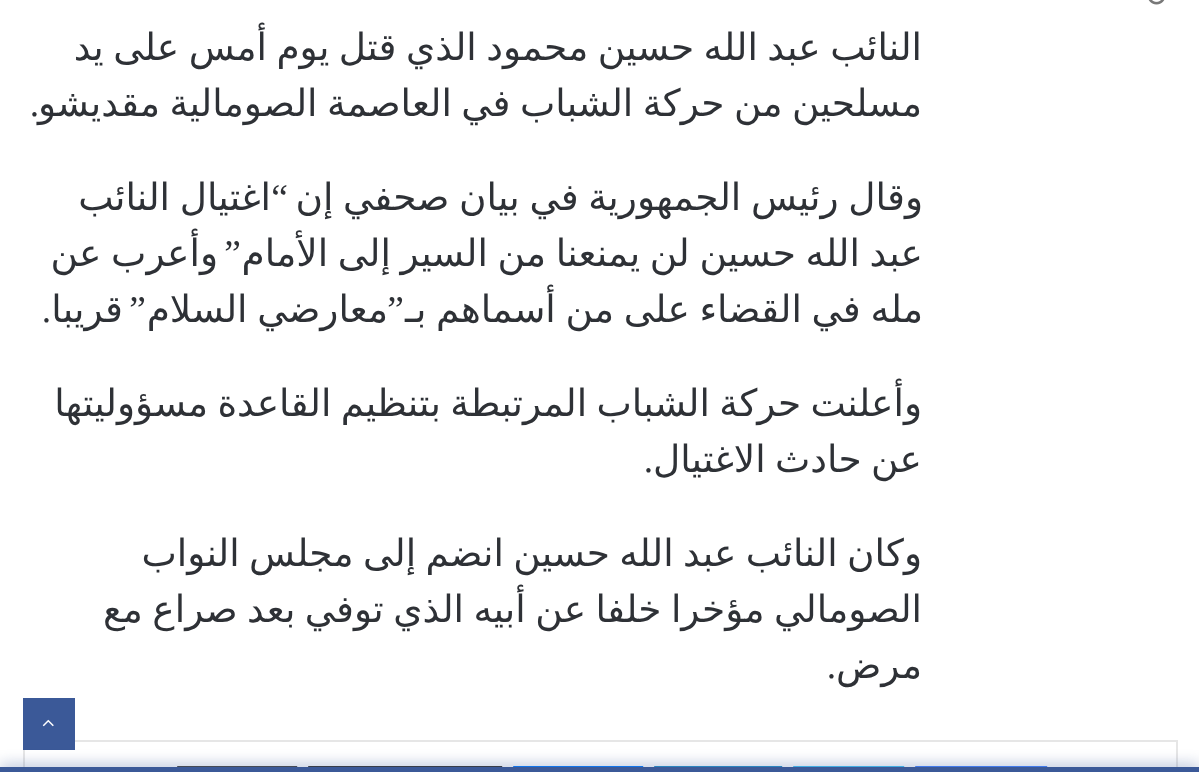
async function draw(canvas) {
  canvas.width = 1199
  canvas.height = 772
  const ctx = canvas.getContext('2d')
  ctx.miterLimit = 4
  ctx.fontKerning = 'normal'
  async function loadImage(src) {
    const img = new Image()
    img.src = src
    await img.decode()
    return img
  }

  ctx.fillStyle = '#fff'
  ctx.fillRect(0, 0, 1199, 772)
  ctx.drawImage(await loadImage('image0.png'), 1148, 0, 17, 5)
  ctx.wordSpacing = '-2.5px'
  ctx.direction = 'rtl'
  ctx.font = '37.5px DejaVu Sans'
  ctx.fillStyle = '#2e3136'
  ctx.fillText('النائب عبد الله حسين محمود الذي قتل يوم أمس على يد', 922, 60)
  ctx.fillText('مسلحين من حركة الشباب في العاصمة الصومالية مقديشو', 922, 116)
  ctx.wordSpacing = '0px'
  ctx.font = '37.5px Liberation Serif'
  ctx.fillText('.', 39, 116)
  ctx.wordSpacing = '-2.25px'
  ctx.font = '37.5px DejaVu Sans'
  ctx.fillText('وقال رئيس الجمهورية في بيان صحفي إن', 923, 210)
  ctx.wordSpacing = '0px'
  ctx.font = '37.5px Liberation Serif'
  ctx.fillText('“', 288, 210)
  ctx.wordSpacing = '-2.25px'
  ctx.font = '37.5px DejaVu Sans'
  ctx.fillText('اغتيال النائب', 271, 210)
  ctx.fillText('عبد الله حسين لن يمنعنا من السير إلى الأمام', 923, 266)
  ctx.wordSpacing = '0px'
  ctx.font = '37.5px Liberation Serif'
  ctx.fillText('”', 241, 266)
  ctx.wordSpacing = '-2.25px'
  ctx.font = '37.5px DejaVu Sans'
  ctx.fillText('وأعرب عن', 218, 266)
  ctx.fillText('مله في القضاء على من أسماهم بـ', 923, 322)
  ctx.wordSpacing = '0px'
  ctx.font = '37.5px Liberation Serif'
  ctx.fillText('”', 404, 322)
  ctx.wordSpacing = '-2.25px'
  ctx.font = '37.5px DejaVu Sans'
  ctx.fillText('معارضي السلام', 388, 322)
  ctx.wordSpacing = '0px'
  ctx.font = '37.5px Liberation Serif'
  ctx.fillText('”', 146, 322)
  ctx.font = '37.5px DejaVu Sans'
  ctx.fillText('قريبا', 123, 322)
  ctx.font = '37.5px Liberation Serif'
  ctx.fillText('.', 51, 322)
  ctx.wordSpacing = '-2.5px'
  ctx.font = '37.5px DejaVu Sans'
  ctx.fillText('وأعلنت حركة الشباب المرتبطة بتنظيم القاعدة مسؤوليتها', 922, 416)
  ctx.fillText('عن حادث الاغتيال', 922, 472)
  ctx.wordSpacing = '0px'
  ctx.font = '37.5px Liberation Serif'
  ctx.fillText('.', 653, 472)
  ctx.wordSpacing = '-2.5px'
  ctx.font = '37.5px DejaVu Sans'
  ctx.fillText('وكان النائب عبد الله حسين انضم إلى مجلس النواب', 922, 566)
  ctx.fillText('الصومالي مؤخرا خلفا عن أبيه الذي توفي بعد صراع مع', 922, 622)
  ctx.wordSpacing = '0px'
  ctx.fillText('مرض', 922, 678)
  ctx.font = '37.5px Liberation Serif'
  ctx.fillText('.', 836, 678)
  ctx.strokeStyle = '#e6e6e6'
  ctx.lineWidth = 2
  ctx.strokeRect(24, 741, 1153, 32)
  ctx.fillStyle = '#4483ff'
  ctx.beginPath()
  ctx.moveTo(915, 766)
  ctx.lineTo(1047, 766)
  ctx.lineTo(1064, 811)
  ctx.lineTo(931, 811)
  ctx.closePath()
  ctx.fill()
  ctx.fillStyle = '#44c0f5'
  ctx.beginPath()
  ctx.moveTo(793, 766)
  ctx.lineTo(904, 766)
  ctx.lineTo(920, 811)
  ctx.lineTo(809, 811)
  ctx.closePath()
  ctx.fill()
  ctx.fillStyle = '#278ec9'
  ctx.beginPath()
  ctx.moveTo(654, 766)
  ctx.lineTo(782, 766)
  ctx.lineTo(798, 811)
  ctx.lineTo(671, 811)
  ctx.closePath()
  ctx.fill()
  ctx.fillStyle = '#057bff'
  ctx.beginPath()
  ctx.moveTo(513, 766)
  ctx.lineTo(643, 766)
  ctx.lineTo(660, 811)
  ctx.lineTo(530, 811)
  ctx.closePath()
  ctx.fill()
  ctx.fillStyle = '#373737'
  ctx.beginPath()
  ctx.moveTo(308, 766)
  ctx.lineTo(502, 766)
  ctx.lineTo(519, 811)
  ctx.lineTo(325, 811)
  ctx.closePath()
  ctx.fill()
  ctx.fillStyle = '#484848'
  ctx.beginPath()
  ctx.moveTo(177, 766)
  ctx.lineTo(297, 766)
  ctx.lineTo(314, 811)
  ctx.lineTo(193, 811)
  ctx.closePath()
  ctx.fill()
  ctx.fillStyle = '#3b5998'
  ctx.fillRect(23, 698, 52, 52)
  ctx.drawImage(await loadImage('image1.png'), 42, 719, 12, 8)
  ctx.fillStyle = '#3b5998b3'
  ctx.filter = 'blur(7.5px)'
  ctx.beginPath()
  ctx.rect(0, 767, 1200, 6)
  ctx.fill()
  ctx.filter = 'none'
  ctx.fillStyle = '#3b5998'
  ctx.fillRect(0, 767, 1199, 5)
}

draw(document.querySelector('canvas'))
